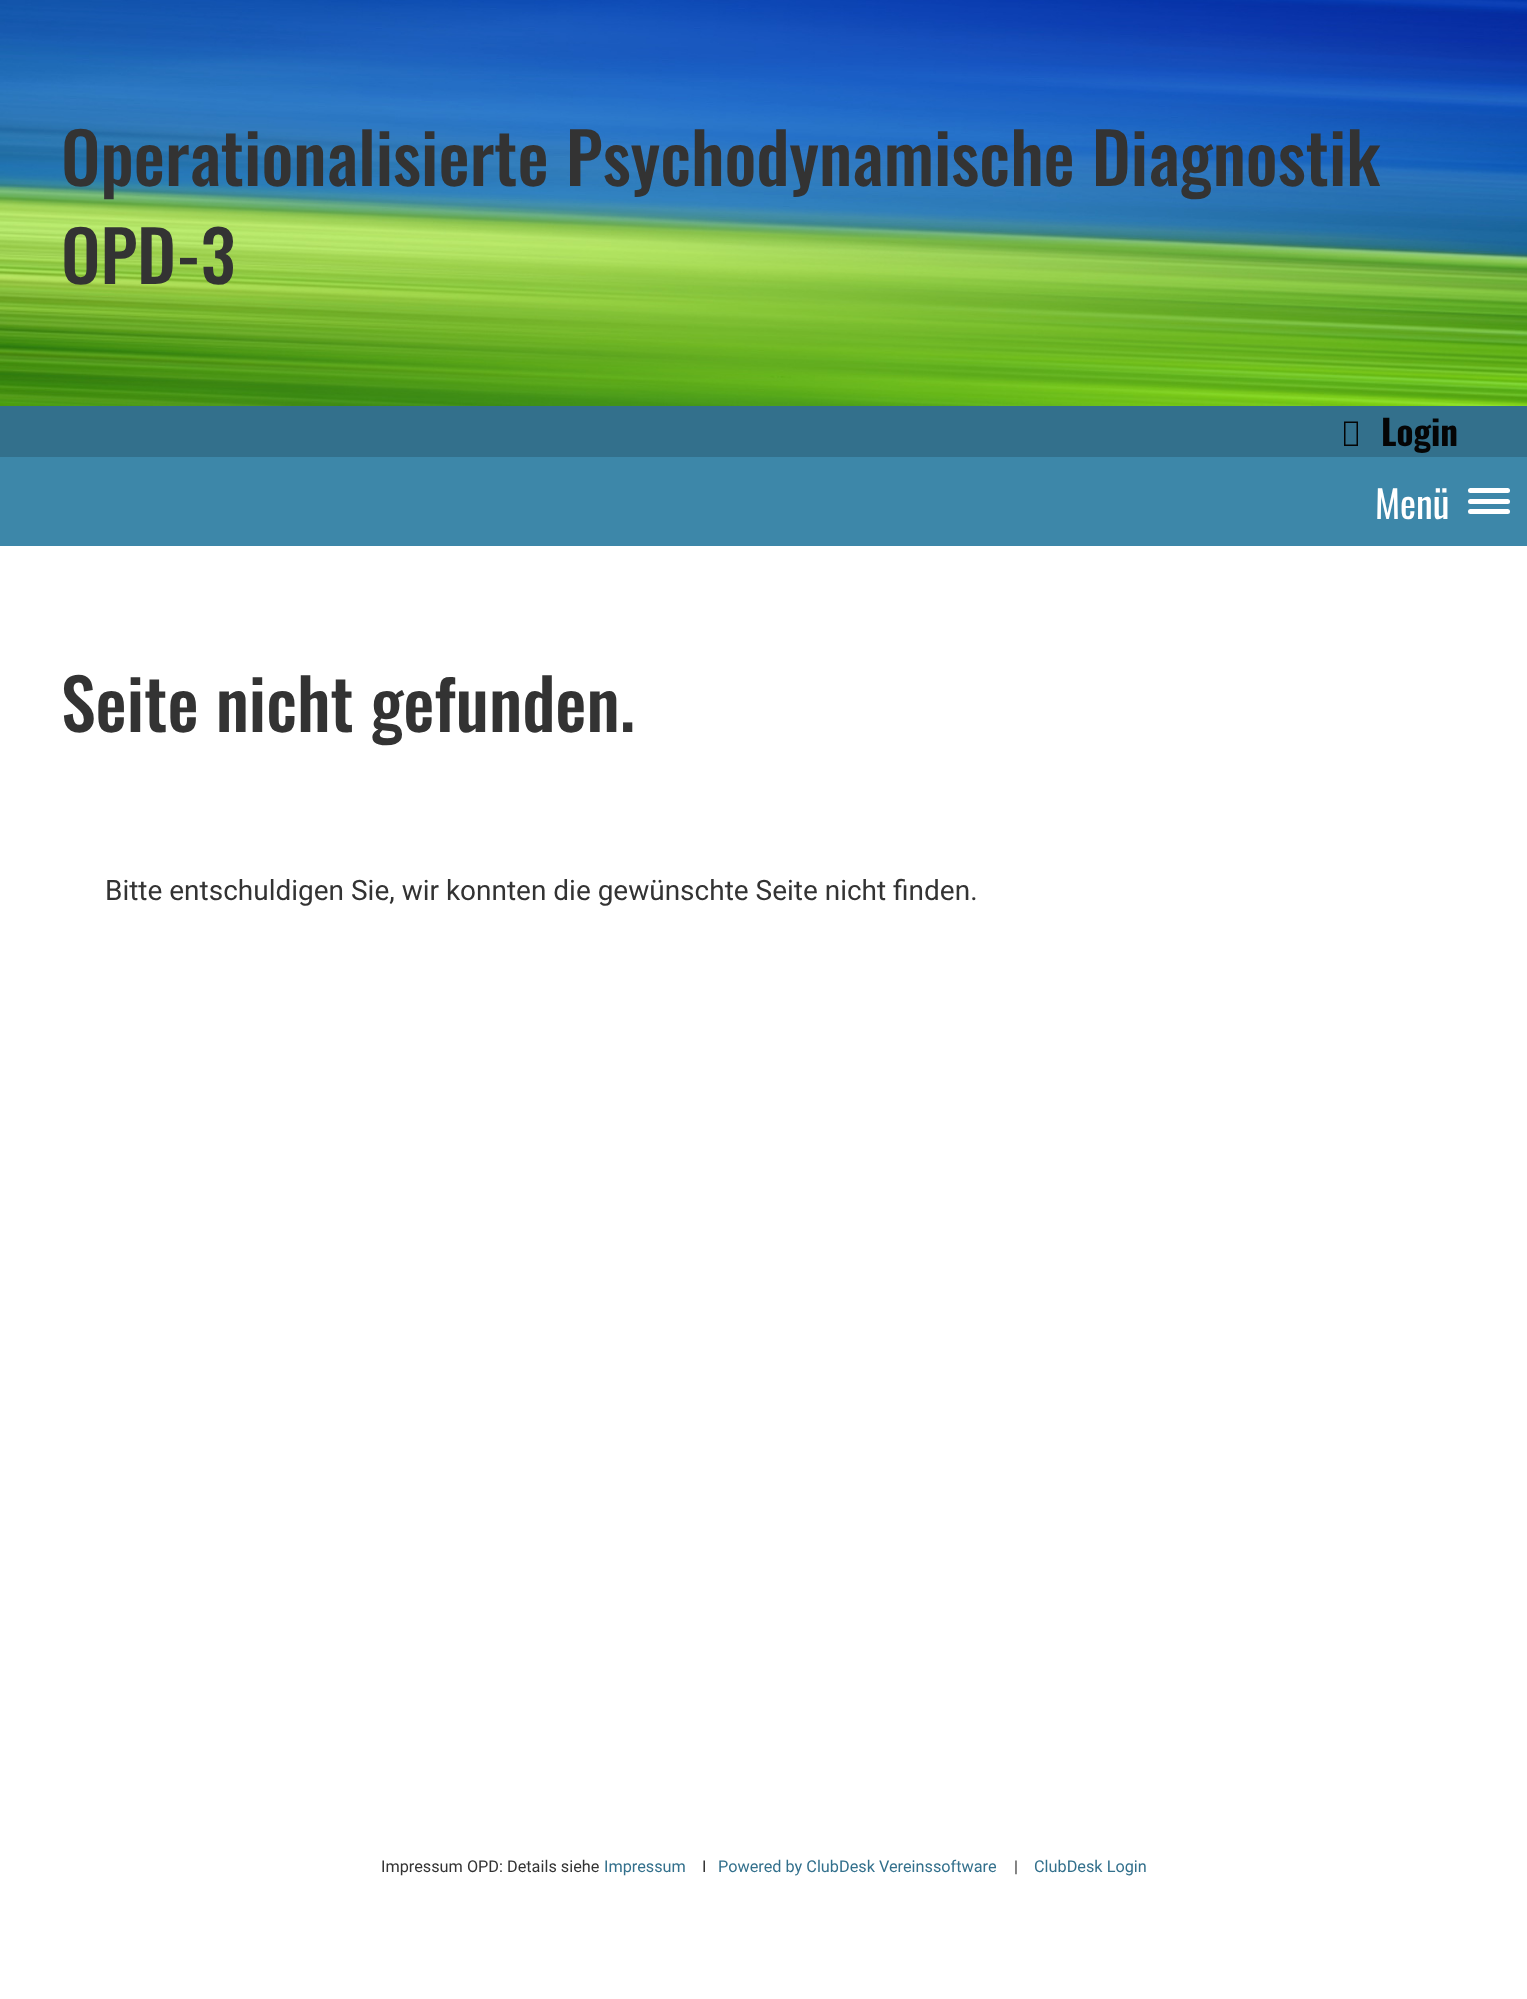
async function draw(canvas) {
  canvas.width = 1527
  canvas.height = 1999
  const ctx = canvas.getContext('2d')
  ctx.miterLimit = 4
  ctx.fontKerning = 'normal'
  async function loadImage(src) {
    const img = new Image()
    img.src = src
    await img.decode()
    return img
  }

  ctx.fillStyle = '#fff'
  ctx.fillRect(0, 0, 1527, 1999)
  ctx.drawImage(await loadImage('image0.png'), 0, 0, 1527, 406)
  ctx.font = '500 70px Oswald'
  ctx.fillStyle = '#333'
  ctx.fillText('Operationalisierte Psychodynamische Diagnostik', 61, 186)
  ctx.fillText('OPD-3', 61, 284)
  ctx.fillStyle = '#33708c'
  ctx.fillRect(0, 406, 1527, 51)
  ctx.fillStyle = '#050505'
  ctx.beginPath()
  ctx.moveTo(1344, 446)
  ctx.lineTo(1344, 421.5)
  ctx.lineTo(1358, 421.5)
  ctx.lineTo(1358, 446)
  ctx.closePath()
  ctx.moveTo(1345.5, 444.5)
  ctx.lineTo(1356.5, 444.5)
  ctx.lineTo(1356.5, 423)
  ctx.lineTo(1345.5, 423)
  ctx.closePath()
  ctx.fill()
  ctx.font = 'bold 35px Oswald'
  ctx.fillText('Login', 1381, 446)
  ctx.fillStyle = '#3d87a9'
  ctx.fillRect(0, 457, 1527, 89)
  ctx.font = '38px Oswald'
  ctx.fillStyle = '#fff'
  ctx.fillText('Menü', 1375, 519)
  ctx.beginPath()
  ctx.roundRect(1468, 488, 42, 5, 2.5)
  ctx.fill()
  ctx.beginPath()
  ctx.roundRect(1468, 499, 42, 5, 2.5)
  ctx.fill()
  ctx.beginPath()
  ctx.roundRect(1468, 509, 42, 5, 2.5)
  ctx.fill()
  ctx.font = '500 70px Oswald'
  ctx.fillStyle = '#333'
  ctx.fillText('Seite nicht gefunden.', 61, 732)
  ctx.font = '28px Roboto'
  ctx.fillText('Bitte entschuldigen Sie, wir konnten die gewünschte Seite nicht finden.', 105, 900)
  ctx.font = '16.3px Roboto'
  ctx.fillText('Impressum OPD: Details siehe', 381, 1872)
  ctx.fillStyle = '#33708c'
  ctx.fillText('Impressum', 604, 1872)
  ctx.fillStyle = '#333'
  ctx.fillText('I', 702, 1872)
  ctx.fillStyle = '#33708c'
  ctx.fillText('Powered by ClubDesk Vereinssoftware', 718, 1872)
  ctx.fillStyle = '#333'
  ctx.fillText('|', 1014, 1872)
  ctx.fillStyle = '#33708c'
  ctx.fillText('ClubDesk Login', 1034, 1872)
}

draw(document.querySelector('canvas'))
